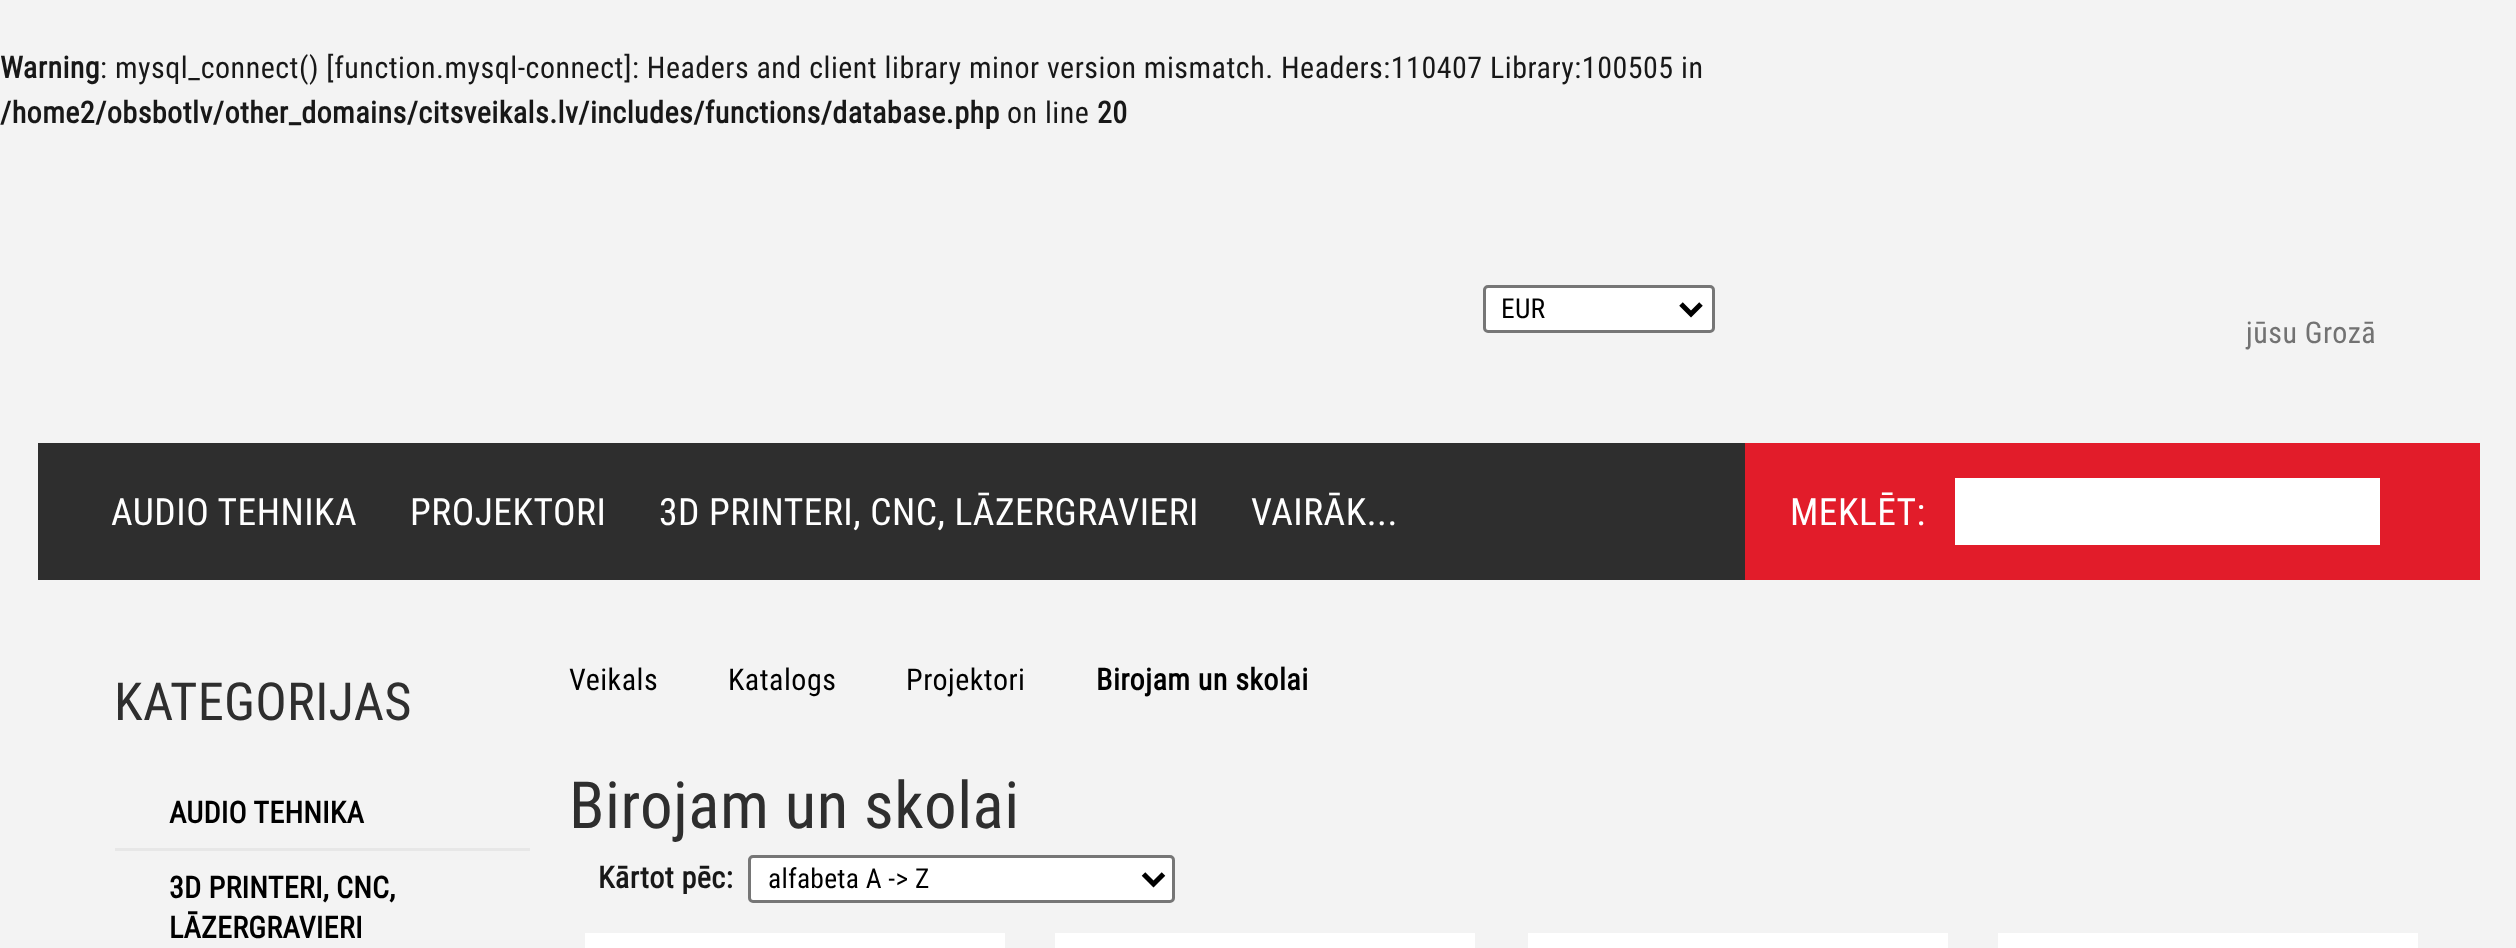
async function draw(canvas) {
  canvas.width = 2516
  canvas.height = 948
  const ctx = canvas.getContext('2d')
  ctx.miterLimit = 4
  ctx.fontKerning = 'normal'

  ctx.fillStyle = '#f3f3f3'
  ctx.fillRect(0, 0, 2516, 948)
  ctx.letterSpacing = '0.5px'
  ctx.font = 'bold 30px Roboto Condensed'
  ctx.fillStyle = '#181818'
  ctx.fillText('Warning', 0, 78)
  ctx.font = '30px Roboto Condensed'
  ctx.fillText(': mysql_connect() [function.mysql-connect]: Headers and client library minor version mismatch. Headers:110407 Library:100505 in', 100, 78)
  ctx.font = 'bold 30px Roboto Condensed'
  ctx.fillText('/home2/obsbotlv/other_domains/citsveikals.lv/includes/functions/database.php', 0, 123)
  ctx.font = '30px Roboto Condensed'
  ctx.fillText('on line', 1007, 123)
  ctx.font = 'bold 30px Roboto Condensed'
  ctx.fillText('20', 1097, 123)
  ctx.fillStyle = '#fff'
  ctx.beginPath()
  ctx.roundRect(1484.5, 286.5, 229, 45, 3.5)
  ctx.fill()
  ctx.strokeStyle = '#767676'
  ctx.lineWidth = 3
  ctx.stroke()
  ctx.beginPath()
  ctx.moveTo(1681, 304)
  ctx.lineTo(1691, 314)
  ctx.lineTo(1701, 304)
  ctx.strokeStyle = '#000'
  ctx.lineWidth = 5
  ctx.stroke()
  ctx.letterSpacing = '0.25px'
  ctx.font = '27.5px Roboto Condensed'
  ctx.fillStyle = '#000'
  ctx.fillText('EUR', 1501, 318)
  ctx.letterSpacing = '0.5px'
  ctx.font = '30px Roboto Condensed'
  ctx.fillStyle = '#727272'
  ctx.fillText('jūsu Grozā', 2246, 343)
  ctx.fillStyle = '#2e2e2e'
  ctx.fillRect(38, 443, 1707, 137)
  ctx.font = '37.5px Roboto Condensed'
  ctx.fillStyle = '#fff'
  ctx.fillText('AUDIO TEHNIKA', 111, 525)
  ctx.fillText('PROJEKTORI', 410, 525)
  ctx.fillText('3D PRINTERI, CNC, LĀZERGRAVIERI', 659, 525)
  ctx.fillText('VAIRĀK...', 1251, 525)
  ctx.fillStyle = '#e21c2a'
  ctx.fillRect(1745, 443, 735, 137)
  ctx.fillStyle = '#fff'
  ctx.fillText('MEKLĒT:', 1790, 525)
  ctx.fillRect(1955, 478, 425, 67)
  ctx.letterSpacing = '0.25px'
  ctx.font = '52.5px Roboto Condensed'
  ctx.fillStyle = '#2e2e2e'
  ctx.fillText('KATEGORIJAS', 114, 720)
  ctx.fillStyle = '#e7e7e7'
  ctx.fillRect(115, 848, 415, 3)
  ctx.font = 'bold 30px Roboto Condensed'
  ctx.fillStyle = '#000'
  ctx.fillText('AUDIO TEHNIKA', 169, 823)
  ctx.fillText('3D PRINTERI, CNC,', 169, 898)
  ctx.fillText('LĀZERGRAVIERI', 169, 938)
  ctx.letterSpacing = '0.5px'
  ctx.font = '30px Roboto Condensed'
  ctx.fillText('Veikals', 569, 690)
  ctx.fillText('Katalogs', 728, 690)
  ctx.fillText('Projektori', 906, 690)
  ctx.font = 'bold 30px Roboto Condensed'
  ctx.fillText('Birojam un skolai', 1096, 690)
  ctx.font = '65px Roboto Condensed'
  ctx.fillStyle = '#2e2e2e'
  ctx.fillText('Birojam un skolai', 569, 828)
  ctx.font = 'bold 30px Roboto Condensed'
  ctx.fillStyle = '#181818'
  ctx.fillText('Kārtot pēc:', 598, 888)
  ctx.fillStyle = '#fff'
  ctx.beginPath()
  ctx.roundRect(749.5, 856.5, 424, 45, 3.5)
  ctx.fill()
  ctx.strokeStyle = '#767676'
  ctx.lineWidth = 3
  ctx.stroke()
  ctx.beginPath()
  ctx.moveTo(1143.5, 874)
  ctx.lineTo(1153.5, 884)
  ctx.lineTo(1163.5, 874)
  ctx.strokeStyle = '#000'
  ctx.lineWidth = 5
  ctx.stroke()
  ctx.letterSpacing = '0.25px'
  ctx.font = '27.5px Roboto Condensed'
  ctx.fillStyle = '#000'
  ctx.fillText('alfabeta A -> Z', 768, 888)
  ctx.fillStyle = '#fff'
  ctx.fillRect(585, 933, 420, 15)
  ctx.fillRect(1055, 933, 420, 15)
  ctx.fillRect(1528, 933, 420, 15)
  ctx.fillRect(1998, 933, 420, 15)
}

draw(document.querySelector('canvas'))
